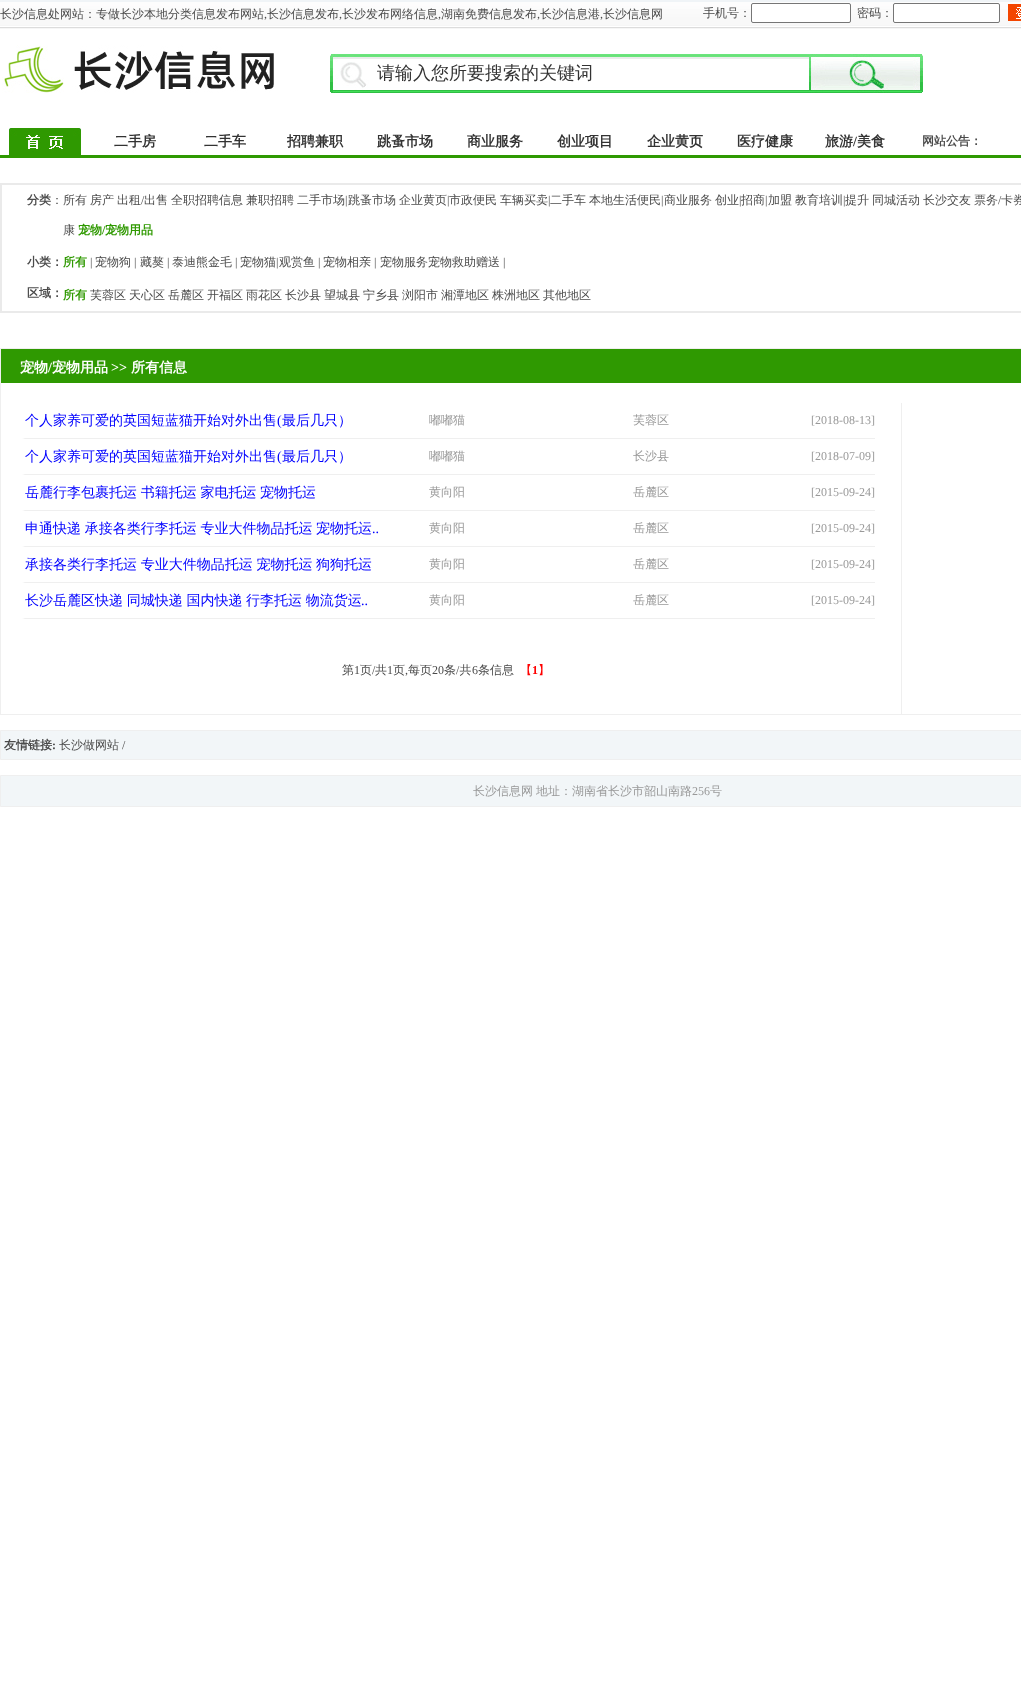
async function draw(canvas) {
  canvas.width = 1021
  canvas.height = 1705
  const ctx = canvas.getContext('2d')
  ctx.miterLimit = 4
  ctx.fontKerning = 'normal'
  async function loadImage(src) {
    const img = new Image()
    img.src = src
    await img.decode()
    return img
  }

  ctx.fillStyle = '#fff'
  ctx.fillRect(0, 0, 1021, 1705)
  ctx.drawImage(await loadImage('image0.png'), 0, 0, 1021, 29)
  ctx.font = '500 12px WenQuanYi Zen Hei'
  ctx.fillStyle = '#4b4b4b'
  ctx.fillText('长沙信息处网站：专做长沙本地分类信息发布网站', 0, 18)
  ctx.font = '12px Liberation Serif'
  ctx.fillText(',', 264, 18)
  ctx.font = '500 12px WenQuanYi Zen Hei'
  ctx.fillText('长沙信息发布', 267, 18)
  ctx.font = '12px Liberation Serif'
  ctx.fillText(',', 339, 18)
  ctx.font = '500 12px WenQuanYi Zen Hei'
  ctx.fillText('长沙发布网络信息', 342, 18)
  ctx.font = '12px Liberation Serif'
  ctx.fillText(',', 438, 18)
  ctx.font = '500 12px WenQuanYi Zen Hei'
  ctx.fillText('湖南免费信息发布', 441, 18)
  ctx.font = '12px Liberation Serif'
  ctx.fillText(',', 537, 18)
  ctx.font = '500 12px WenQuanYi Zen Hei'
  ctx.fillText('长沙信息港', 540, 18)
  ctx.font = '12px Liberation Serif'
  ctx.fillText(',', 600, 18)
  ctx.font = '500 12px WenQuanYi Zen Hei'
  ctx.fillText('长沙信息网', 603, 18)
  ctx.fillText('手机号：', 703, 17)
  ctx.fillStyle = '#fff'
  ctx.beginPath()
  ctx.roundRect(751.5, 3.5, 99, 19, 1.5)
  ctx.fill()
  ctx.strokeStyle = '#767676'
  ctx.stroke()
  ctx.fillStyle = '#4b4b4b'
  ctx.fillText('密码：', 857, 17)
  ctx.fillStyle = '#fff'
  ctx.beginPath()
  ctx.roundRect(893.5, 3.5, 106, 19, 1.5)
  ctx.fill()
  ctx.stroke()
  ctx.drawImage(await loadImage('image1.png'), 1008, 4, 13, 17)
  ctx.drawImage(await loadImage('image2.png'), 2, 45, 272, 48)
  ctx.drawImage(await loadImage('image3.png'), 330, 54, 39, 39)
  ctx.drawImage(await loadImage('image4.png'), 369, 54, 440, 39)
  ctx.font = '500 18px WenQuanYi Zen Hei'
  ctx.fillStyle = '#333'
  ctx.fillText('请输入您所要搜索的关键词', 377, 79)
  ctx.drawImage(await loadImage('image5.png'), 809, 54, 114, 39)
  ctx.fillStyle = '#2f9901'
  ctx.fillRect(0, 155, 1021, 3)
  ctx.drawImage(await loadImage('image6.png'), 9, 128, 72, 27)
  ctx.font = 'bold 14px WenQuanYi Zen Hei'
  ctx.fillStyle = '#333'
  ctx.fillText('二手房', 114, 146)
  ctx.fillText('二手车', 204, 146)
  ctx.fillText('招聘兼职', 287, 146)
  ctx.fillText('跳蚤市场', 377, 146)
  ctx.fillText('商业服务', 467, 146)
  ctx.fillText('创业项目', 557, 146)
  ctx.fillText('企业黄页', 647, 146)
  ctx.fillText('医疗健康', 737, 146)
  ctx.fillText('旅游', 825, 146)
  ctx.font = 'bold 14px Liberation Serif'
  ctx.fillText('/', 853, 146)
  ctx.font = 'bold 14px WenQuanYi Zen Hei'
  ctx.fillText('美食', 857, 146)
  ctx.font = 'bold 12px WenQuanYi Zen Hei'
  ctx.fillStyle = '#4b4b4b'
  ctx.fillText('网站公告：', 922, 145)
  ctx.strokeStyle = '#eaeaea'
  ctx.lineWidth = 2
  ctx.strokeRect(1, 184, 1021, 128)
  ctx.fillText('分类', 27, 204)
  ctx.font = '500 12px WenQuanYi Zen Hei'
  ctx.fillText('：所有', 51, 204)
  ctx.fillText('房产', 90, 204)
  ctx.fillText('出租', 117, 204)
  ctx.font = '12px Liberation Serif'
  ctx.fillText('/', 141, 204)
  ctx.font = '500 12px WenQuanYi Zen Hei'
  ctx.fillText('出售', 144, 204)
  ctx.fillText('全职招聘信息', 171, 204)
  ctx.fillText('兼职招聘', 246, 204)
  ctx.fillText('二手市场', 297, 204)
  ctx.font = '12px Liberation Serif'
  ctx.fillText('|', 345, 204)
  ctx.font = '500 12px WenQuanYi Zen Hei'
  ctx.fillText('跳蚤市场', 348, 204)
  ctx.fillText('企业黄页', 399, 204)
  ctx.font = '12px Liberation Serif'
  ctx.fillText('|', 447, 204)
  ctx.font = '500 12px WenQuanYi Zen Hei'
  ctx.fillText('市政便民', 449, 204)
  ctx.fillText('车辆买卖', 500, 204)
  ctx.font = '12px Liberation Serif'
  ctx.fillText('|', 548, 204)
  ctx.font = '500 12px WenQuanYi Zen Hei'
  ctx.fillText('二手车', 550, 204)
  ctx.fillText('本地生活便民', 589, 204)
  ctx.font = '12px Liberation Serif'
  ctx.fillText('|', 661, 204)
  ctx.font = '500 12px WenQuanYi Zen Hei'
  ctx.fillText('商业服务', 664, 204)
  ctx.fillText('创业', 715, 204)
  ctx.font = '12px Liberation Serif'
  ctx.fillText('|', 739, 204)
  ctx.font = '500 12px WenQuanYi Zen Hei'
  ctx.fillText('招商', 741, 204)
  ctx.font = '12px Liberation Serif'
  ctx.fillText('|', 765, 204)
  ctx.font = '500 12px WenQuanYi Zen Hei'
  ctx.fillText('加盟', 768, 204)
  ctx.fillText('教育培训', 795, 204)
  ctx.font = '12px Liberation Serif'
  ctx.fillText('|', 843, 204)
  ctx.font = '500 12px WenQuanYi Zen Hei'
  ctx.fillText('提升', 845, 204)
  ctx.fillText('同城活动', 872, 204)
  ctx.fillText('长沙交友', 923, 204)
  ctx.fillText('票务', 974, 204)
  ctx.font = '12px Liberation Serif'
  ctx.fillText('/', 998, 204)
  ctx.font = '500 12px WenQuanYi Zen Hei'
  ctx.fillText('卡券', 1001, 204)
  ctx.fillText('康', 63, 234)
  ctx.font = 'bold 12px WenQuanYi Zen Hei'
  ctx.fillStyle = '#2f9901'
  ctx.fillText('宠物', 78, 234)
  ctx.font = 'bold 12px Liberation Serif'
  ctx.fillText('/', 102, 234)
  ctx.font = 'bold 12px WenQuanYi Zen Hei'
  ctx.fillText('宠物用品', 105, 234)
  ctx.fillStyle = '#4b4b4b'
  ctx.fillText('小类：', 27, 266)
  ctx.fillStyle = '#2f9901'
  ctx.fillText('所有', 63, 266)
  ctx.font = '12px Liberation Serif'
  ctx.fillStyle = '#4b4b4b'
  ctx.fillText('|', 90, 266)
  ctx.font = '500 12px WenQuanYi Zen Hei'
  ctx.fillText('宠物狗', 95, 266)
  ctx.font = '12px Liberation Serif'
  ctx.fillText('|', 134, 266)
  ctx.font = '500 12px WenQuanYi Zen Hei'
  ctx.fillText('藏獒', 140, 266)
  ctx.font = '12px Liberation Serif'
  ctx.fillText('|', 167, 266)
  ctx.font = '500 12px WenQuanYi Zen Hei'
  ctx.fillText('泰迪熊金毛', 172, 266)
  ctx.font = '12px Liberation Serif'
  ctx.fillText('|', 235, 266)
  ctx.font = '500 12px WenQuanYi Zen Hei'
  ctx.fillText('宠物猫', 240, 266)
  ctx.font = '12px Liberation Serif'
  ctx.fillText('|', 276, 266)
  ctx.font = '500 12px WenQuanYi Zen Hei'
  ctx.fillText('观赏鱼', 279, 266)
  ctx.font = '12px Liberation Serif'
  ctx.fillText('|', 318, 266)
  ctx.font = '500 12px WenQuanYi Zen Hei'
  ctx.fillText('宠物相亲', 323, 266)
  ctx.font = '12px Liberation Serif'
  ctx.fillText('|', 374, 266)
  ctx.font = '500 12px WenQuanYi Zen Hei'
  ctx.fillText('宠物服务宠物救助赠送', 380, 266)
  ctx.font = '12px Liberation Serif'
  ctx.fillText('|', 503, 266)
  ctx.font = 'bold 12px WenQuanYi Zen Hei'
  ctx.fillText('区域：', 27, 297)
  ctx.fillStyle = '#2f9901'
  ctx.fillText('所有', 63, 299)
  ctx.font = '500 12px WenQuanYi Zen Hei'
  ctx.fillStyle = '#4b4b4b'
  ctx.fillText('芙蓉区', 90, 299)
  ctx.fillText('天心区', 129, 299)
  ctx.fillText('岳麓区', 168, 299)
  ctx.fillText('开福区', 207, 299)
  ctx.fillText('雨花区', 246, 299)
  ctx.fillText('长沙县', 285, 299)
  ctx.fillText('望城县', 324, 299)
  ctx.fillText('宁乡县', 363, 299)
  ctx.fillText('浏阳市', 402, 299)
  ctx.fillText('湘潭地区', 441, 299)
  ctx.fillText('株洲地区', 492, 299)
  ctx.fillText('其他地区', 543, 299)
  ctx.strokeStyle = '#efefef'
  ctx.lineWidth = 1
  ctx.strokeRect(0.5, 348.5, 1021, 366)
  ctx.fillStyle = '#2f9901'
  ctx.fillRect(1, 349, 1020, 34)
  ctx.font = 'bold 14px WenQuanYi Zen Hei'
  ctx.fillStyle = '#fff'
  ctx.fillText('宠物', 20, 372)
  ctx.font = 'bold 14px Liberation Serif'
  ctx.fillText('/', 48, 372)
  ctx.font = 'bold 14px WenQuanYi Zen Hei'
  ctx.fillText('宠物用品', 52, 372)
  ctx.font = 'bold 14px Liberation Serif'
  ctx.fillText('>>', 111, 372)
  ctx.font = 'bold 14px WenQuanYi Zen Hei'
  ctx.fillText('所有信息', 131, 372)
  ctx.fillStyle = '#efefef'
  ctx.fillRect(901, 403, 1, 311)
  ctx.beginPath()
  ctx.moveTo(875, 439)
  ctx.lineTo(21, 439)
  ctx.lineTo(25, 438)
  ctx.lineTo(875, 438)
  ctx.closePath()
  ctx.fill()
  ctx.fillStyle = '#fff'
  ctx.beginPath()
  ctx.moveTo(21, 439)
  ctx.lineTo(21, 403)
  ctx.lineTo(25, 403)
  ctx.lineTo(25, 438)
  ctx.closePath()
  ctx.fill()
  ctx.font = '500 14px WenQuanYi Zen Hei'
  ctx.fillStyle = '#00f'
  ctx.fillText('个人家养可爱的英国短蓝猫开始对外出售', 25, 425)
  ctx.font = '14px Liberation Serif'
  ctx.fillText('(', 277, 425)
  ctx.font = '500 14px WenQuanYi Zen Hei'
  ctx.fillText('最后几只）', 282, 425)
  ctx.font = '500 12px WenQuanYi Zen Hei'
  ctx.fillStyle = '#999'
  ctx.fillText('嘟嘟猫', 429, 424)
  ctx.fillText('芙蓉区', 633, 424)
  ctx.font = '12px Liberation Serif'
  ctx.fillText('[2018-08-13]', 811, 424)
  ctx.fillStyle = '#efefef'
  ctx.beginPath()
  ctx.moveTo(875, 475)
  ctx.lineTo(21, 475)
  ctx.lineTo(25, 474)
  ctx.lineTo(875, 474)
  ctx.closePath()
  ctx.fill()
  ctx.fillStyle = '#fff'
  ctx.beginPath()
  ctx.moveTo(21, 475)
  ctx.lineTo(21, 439)
  ctx.lineTo(25, 439)
  ctx.lineTo(25, 474)
  ctx.closePath()
  ctx.fill()
  ctx.font = '500 14px WenQuanYi Zen Hei'
  ctx.fillStyle = '#00f'
  ctx.fillText('个人家养可爱的英国短蓝猫开始对外出售', 25, 461)
  ctx.font = '14px Liberation Serif'
  ctx.fillText('(', 277, 461)
  ctx.font = '500 14px WenQuanYi Zen Hei'
  ctx.fillText('最后几只）', 282, 461)
  ctx.font = '500 12px WenQuanYi Zen Hei'
  ctx.fillStyle = '#999'
  ctx.fillText('嘟嘟猫', 429, 460)
  ctx.fillText('长沙县', 633, 460)
  ctx.font = '12px Liberation Serif'
  ctx.fillText('[2018-07-09]', 811, 460)
  ctx.fillStyle = '#efefef'
  ctx.beginPath()
  ctx.moveTo(875, 511)
  ctx.lineTo(21, 511)
  ctx.lineTo(25, 510)
  ctx.lineTo(875, 510)
  ctx.closePath()
  ctx.fill()
  ctx.fillStyle = '#fff'
  ctx.beginPath()
  ctx.moveTo(21, 511)
  ctx.lineTo(21, 475)
  ctx.lineTo(25, 475)
  ctx.lineTo(25, 510)
  ctx.closePath()
  ctx.fill()
  ctx.wordSpacing = '-0.5px'
  ctx.font = '500 14px WenQuanYi Zen Hei'
  ctx.fillStyle = '#00f'
  ctx.fillText('岳麓行李包裹托运 书籍托运 家电托运 宠物托运', 25, 497)
  ctx.wordSpacing = '0px'
  ctx.font = '500 12px WenQuanYi Zen Hei'
  ctx.fillStyle = '#999'
  ctx.fillText('黄向阳', 429, 496)
  ctx.fillText('岳麓区', 633, 496)
  ctx.font = '12px Liberation Serif'
  ctx.fillText('[2015-09-24]', 811, 496)
  ctx.fillStyle = '#efefef'
  ctx.beginPath()
  ctx.moveTo(875, 547)
  ctx.lineTo(21, 547)
  ctx.lineTo(25, 546)
  ctx.lineTo(875, 546)
  ctx.closePath()
  ctx.fill()
  ctx.fillStyle = '#fff'
  ctx.beginPath()
  ctx.moveTo(21, 547)
  ctx.lineTo(21, 511)
  ctx.lineTo(25, 511)
  ctx.lineTo(25, 546)
  ctx.closePath()
  ctx.fill()
  ctx.wordSpacing = '-0.5px'
  ctx.font = '500 14px WenQuanYi Zen Hei'
  ctx.fillStyle = '#00f'
  ctx.fillText('申通快递 承接各类行李托运 专业大件物品托运 宠物托运', 25, 533)
  ctx.wordSpacing = '0px'
  ctx.font = '14px Liberation Serif'
  ctx.fillText('..', 372, 533)
  ctx.font = '500 12px WenQuanYi Zen Hei'
  ctx.fillStyle = '#999'
  ctx.fillText('黄向阳', 429, 532)
  ctx.fillText('岳麓区', 633, 532)
  ctx.font = '12px Liberation Serif'
  ctx.fillText('[2015-09-24]', 811, 532)
  ctx.fillStyle = '#efefef'
  ctx.beginPath()
  ctx.moveTo(875, 583)
  ctx.lineTo(21, 583)
  ctx.lineTo(25, 582)
  ctx.lineTo(875, 582)
  ctx.closePath()
  ctx.fill()
  ctx.fillStyle = '#fff'
  ctx.beginPath()
  ctx.moveTo(21, 583)
  ctx.lineTo(21, 547)
  ctx.lineTo(25, 547)
  ctx.lineTo(25, 582)
  ctx.closePath()
  ctx.fill()
  ctx.wordSpacing = '-0.5px'
  ctx.font = '500 14px WenQuanYi Zen Hei'
  ctx.fillStyle = '#00f'
  ctx.fillText('承接各类行李托运 专业大件物品托运 宠物托运 狗狗托运', 25, 569)
  ctx.wordSpacing = '0px'
  ctx.font = '500 12px WenQuanYi Zen Hei'
  ctx.fillStyle = '#999'
  ctx.fillText('黄向阳', 429, 568)
  ctx.fillText('岳麓区', 633, 568)
  ctx.font = '12px Liberation Serif'
  ctx.fillText('[2015-09-24]', 811, 568)
  ctx.fillStyle = '#efefef'
  ctx.beginPath()
  ctx.moveTo(875, 619)
  ctx.lineTo(21, 619)
  ctx.lineTo(25, 618)
  ctx.lineTo(875, 618)
  ctx.closePath()
  ctx.fill()
  ctx.fillStyle = '#fff'
  ctx.beginPath()
  ctx.moveTo(21, 619)
  ctx.lineTo(21, 583)
  ctx.lineTo(25, 583)
  ctx.lineTo(25, 618)
  ctx.closePath()
  ctx.fill()
  ctx.wordSpacing = '-0.5px'
  ctx.font = '500 14px WenQuanYi Zen Hei'
  ctx.fillStyle = '#00f'
  ctx.fillText('长沙岳麓区快递 同城快递 国内快递 行李托运 物流货运', 25, 605)
  ctx.wordSpacing = '0px'
  ctx.font = '14px Liberation Serif'
  ctx.fillText('..', 361, 605)
  ctx.font = '500 12px WenQuanYi Zen Hei'
  ctx.fillStyle = '#999'
  ctx.fillText('黄向阳', 429, 604)
  ctx.fillText('岳麓区', 633, 604)
  ctx.font = '12px Liberation Serif'
  ctx.fillText('[2015-09-24]', 811, 604)
  ctx.font = '500 12px WenQuanYi Zen Hei'
  ctx.fillStyle = '#4b4b4b'
  ctx.fillText('第', 342, 674)
  ctx.font = '12px Liberation Serif'
  ctx.fillText('1', 354, 674)
  ctx.font = '500 12px WenQuanYi Zen Hei'
  ctx.fillText('页', 360, 674)
  ctx.font = '12px Liberation Serif'
  ctx.fillText('/', 372, 674)
  ctx.font = '500 12px WenQuanYi Zen Hei'
  ctx.fillText('共', 375, 674)
  ctx.font = '12px Liberation Serif'
  ctx.fillText('1', 387, 674)
  ctx.font = '500 12px WenQuanYi Zen Hei'
  ctx.fillText('页', 393, 674)
  ctx.fillText('每页', 408, 674)
  ctx.font = '12px Liberation Serif'
  ctx.fillText('20', 432, 674)
  ctx.font = '500 12px WenQuanYi Zen Hei'
  ctx.fillText('条 共', 444, 674)
  ctx.fillText('条信息', 478, 674)
  ctx.font = '12px Liberation Serif'
  ctx.fillText(',', 405, 674)
  ctx.fillText('/', 456, 674)
  ctx.fillText('6', 472, 674)
  ctx.font = '500 12px WenQuanYi Zen Hei'
  ctx.fillStyle = '#f00'
  ctx.fillText('【', 520, 674)
  ctx.font = 'bold 12px Liberation Serif'
  ctx.fillText('1', 532, 674)
  ctx.font = '500 12px WenQuanYi Zen Hei'
  ctx.fillText('】', 538, 674)
  ctx.fillStyle = '#f2f6f8'
  ctx.beginPath()
  ctx.rect(0.5, 730.5, 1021, 29)
  ctx.fill()
  ctx.stroke()
  ctx.font = 'bold 12px WenQuanYi Zen Hei'
  ctx.fillStyle = '#4b4b4b'
  ctx.fillText('友情链接', 4, 749)
  ctx.font = 'bold 12px Liberation Serif'
  ctx.fillText(':', 52, 749)
  ctx.font = '500 12px WenQuanYi Zen Hei'
  ctx.fillText('长沙做网站', 59, 749)
  ctx.font = '12px Liberation Serif'
  ctx.fillText('/', 122, 749)
  ctx.fillStyle = '#f2f6f8'
  ctx.beginPath()
  ctx.rect(0.5, 775.5, 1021, 31)
  ctx.fill()
  ctx.stroke()
  ctx.font = '500 12px WenQuanYi Zen Hei'
  ctx.fillStyle = '#999'
  ctx.fillText('长沙信息网', 473, 795)
  ctx.fillText('地址：湖南省长沙市韶山南路', 536, 795)
  ctx.font = '12px Liberation Serif'
  ctx.fillText('256', 692, 795)
  ctx.font = '500 12px WenQuanYi Zen Hei'
  ctx.fillText('号', 710, 795)
}

draw(document.querySelector('canvas'))
